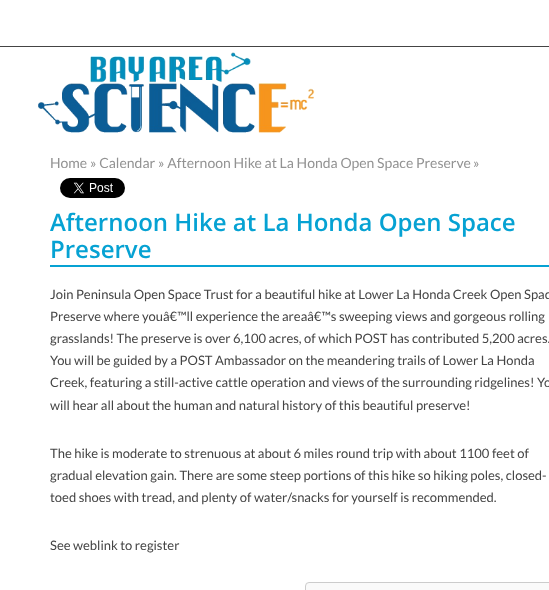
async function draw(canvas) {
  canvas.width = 549
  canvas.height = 590
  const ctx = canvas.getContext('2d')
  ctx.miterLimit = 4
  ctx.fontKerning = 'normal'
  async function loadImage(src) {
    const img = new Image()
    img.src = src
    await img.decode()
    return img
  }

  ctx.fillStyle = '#fff'
  ctx.fillRect(0, 0, 549, 590)
  ctx.fillStyle = '#444'
  ctx.fillRect(0, 46, 549, 1)
  ctx.drawImage(await loadImage('image0.png'), 38, 52, 277, 81)
  ctx.font = '14px Lato'
  ctx.fillStyle = '#929292'
  ctx.fillText('Home', 50, 168)
  ctx.fillText('» Calendar', 90, 168)
  ctx.fillText('» Afternoon Hike at La Honda Open Space Preserve', 158, 168)
  ctx.fillText('»', 473, 168)
  ctx.drawImage(await loadImage('image1.png'), 60, 178, 65, 20)
  ctx.fillStyle = '#06a2d3'
  ctx.fillRect(50, 265, 499, 2)
  ctx.font = '600 24px Open Sans'
  ctx.fillText('Afternoon Hike at La Honda Open Space', 50, 231)
  ctx.fillText('Preserve', 50, 258)
  ctx.font = '13px Lato'
  ctx.fillStyle = '#444'
  ctx.fillText('Join Peninsula Open Space Trust for a beautiful hike at Lower La Honda Creek Open Spac', 50, 299)
  ctx.fillText('Preserve where youâ€™ll experience the areaâ€™s sweeping views and gorgeous rolling', 50, 321)
  ctx.fillText('grasslands! The preserve is over 6,100 acres, of which POST has contributed 5,200 acres.', 50, 343)
  ctx.fillText('You will be guided by a POST Ambassador on the meandering trails of Lower La Honda', 50, 365)
  ctx.fillText('Creek, featuring a still-active cattle operation and views of the surrounding ridgelines! Yo', 50, 387)
  ctx.fillText('will hear all about the human and natural history of this beautiful preserve!', 50, 410)
  ctx.fillText('The hike is moderate to strenuous at about 6 miles round trip with about 1100 feet of', 50, 458)
  ctx.fillText('gradual elevation gain. There are some steep portions of this hike so hiking poles, closed-', 50, 480)
  ctx.fillText('toed shoes with tread, and plenty of water/snacks for yourself is recommended.', 50, 502)
  ctx.fillText('See weblink to register', 50, 550)
  ctx.fillStyle = '#fafafa'
  ctx.beginPath()
  ctx.roundRect(305.5, 582.5, 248, 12, 3.5)
  ctx.fill()
  ctx.strokeStyle = '#ccc'
  ctx.stroke()
}

draw(document.querySelector('canvas'))
